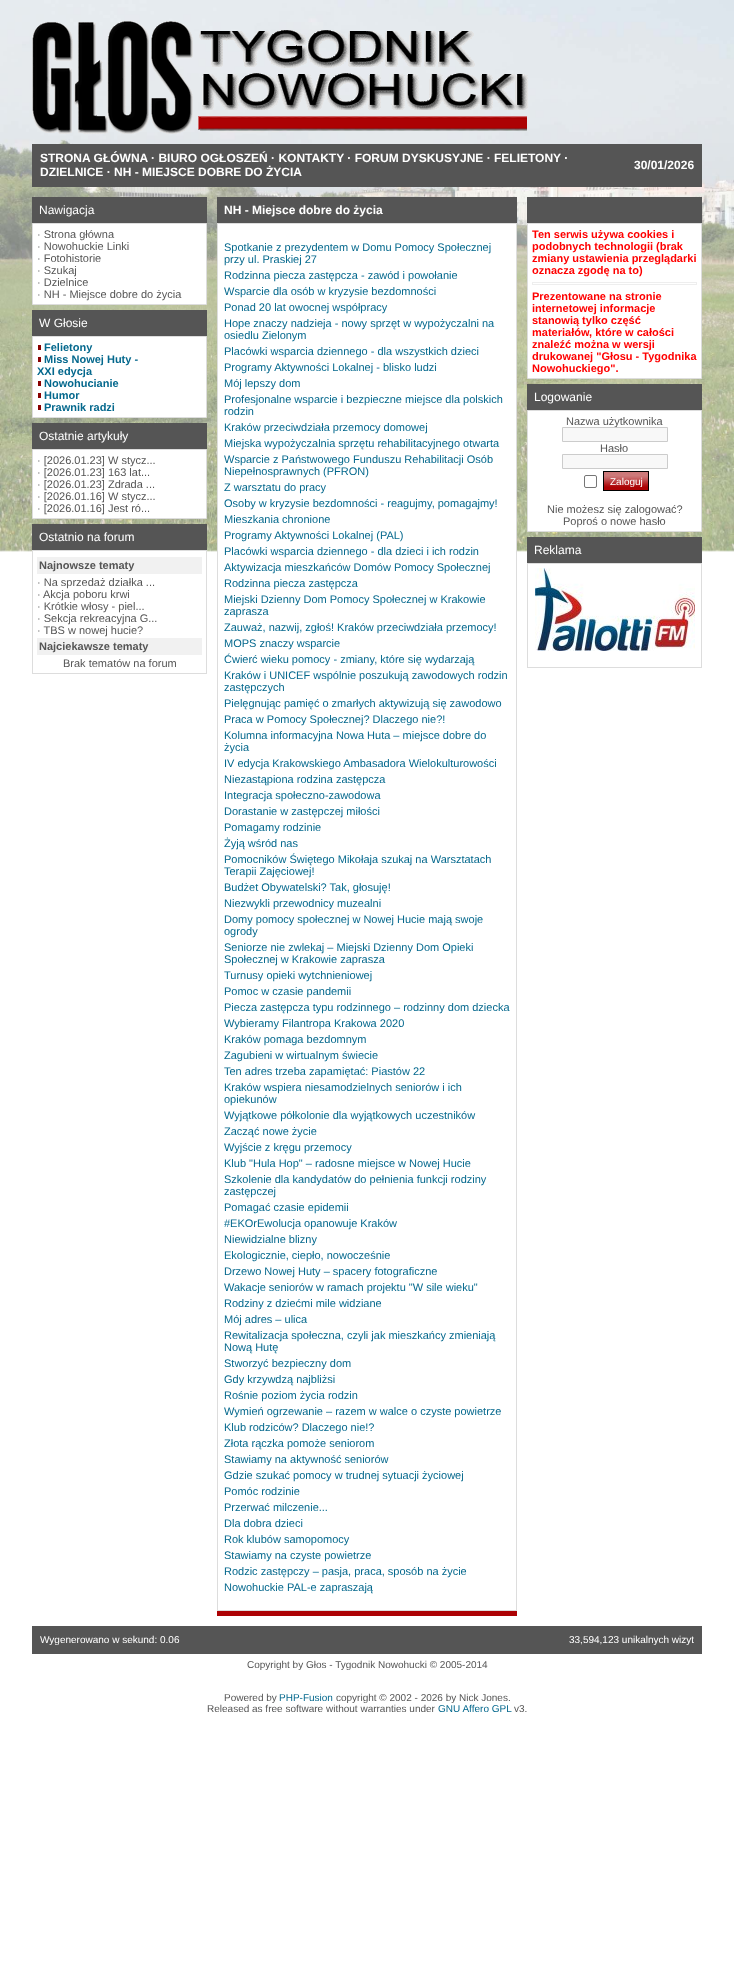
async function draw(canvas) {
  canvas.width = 734
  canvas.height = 1981
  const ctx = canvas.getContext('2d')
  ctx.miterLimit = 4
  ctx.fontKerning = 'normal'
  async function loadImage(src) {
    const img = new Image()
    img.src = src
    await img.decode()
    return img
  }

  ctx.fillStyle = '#fff'
  ctx.fillRect(0, 0, 734, 1981)
  ctx.drawImage(await loadImage('image0.png'), 0, 0, 734, 552)
  ctx.drawImage(await loadImage('image1.png'), 32, 21, 496, 113)
  ctx.fillStyle = '#555'
  ctx.fillRect(32, 144, 670, 43)
  ctx.font = 'bold 12px Liberation Sans'
  ctx.fillStyle = '#fff'
  ctx.fillText('STRONA GŁÓWNA · BIURO OGŁOSZEŃ · KONTAKTY · FORUM DYSKUSYJNE · FELIETONY ·', 40, 162)
  ctx.fillText('DZIELNICE · NH - MIEJSCE DOBRE DO ŻYCIA', 40, 176)
  ctx.fillText('30/01/2026', 634, 169)
  ctx.fillStyle = '#555'
  ctx.fillRect(32, 197, 175, 26)
  ctx.font = '12px Liberation Sans'
  ctx.fillStyle = '#fff'
  ctx.fillText('Nawigacja', 39, 214)
  ctx.beginPath()
  ctx.rect(32.5, 223.5, 174, 81)
  ctx.fill()
  ctx.strokeStyle = '#ddd'
  ctx.stroke()
  ctx.font = '11px Liberation Sans'
  ctx.fillStyle = '#555'
  ctx.fillText('· Strona główna', 37, 238)
  ctx.fillText('· Nowohuckie Linki', 37, 250)
  ctx.fillText('· Fotohistorie', 37, 262)
  ctx.fillText('· Szukaj', 37, 274)
  ctx.fillText('· Dzielnice', 37, 286)
  ctx.fillText('· NH - Miejsce dobre do życia', 37, 298)
  ctx.fillRect(32, 310, 175, 26)
  ctx.font = '12px Liberation Sans'
  ctx.fillStyle = '#fff'
  ctx.fillText('W Głosie', 39, 327)
  ctx.beginPath()
  ctx.rect(32.5, 336.5, 174, 81)
  ctx.fill()
  ctx.stroke()
  ctx.font = 'bold 11px Liberation Sans'
  ctx.fillStyle = '#04688d'
  ctx.fillText('Felietony', 44, 351)
  ctx.fillStyle = '#800'
  ctx.fillRect(38, 345, 3, 5)
  ctx.fillStyle = '#04688d'
  ctx.fillText('Miss Nowej Huty -', 44, 363)
  ctx.fillStyle = '#800'
  ctx.fillRect(38, 357, 3, 5)
  ctx.fillStyle = '#04688d'
  ctx.fillText('XXI edycja', 37, 375)
  ctx.fillText('Nowohucianie', 44, 387)
  ctx.fillStyle = '#800'
  ctx.fillRect(38, 381, 3, 5)
  ctx.fillStyle = '#04688d'
  ctx.fillText('Humor', 44, 399)
  ctx.fillStyle = '#800'
  ctx.fillRect(38, 393, 3, 5)
  ctx.fillStyle = '#04688d'
  ctx.fillText('Prawnik radzi', 44, 411)
  ctx.fillStyle = '#800'
  ctx.fillRect(38, 405, 3, 5)
  ctx.fillStyle = '#555'
  ctx.fillRect(32, 423, 175, 26)
  ctx.font = '12px Liberation Sans'
  ctx.fillStyle = '#fff'
  ctx.fillText('Ostatnie artykuły', 39, 440)
  ctx.beginPath()
  ctx.rect(32.5, 449.5, 174, 69)
  ctx.fill()
  ctx.stroke()
  ctx.font = '11px Liberation Sans'
  ctx.fillStyle = '#555'
  ctx.fillText('· [2026.01.23] W stycz...', 37, 464)
  ctx.fillText('· [2026.01.23] 163 lat...', 37, 476)
  ctx.fillText('· [2026.01.23] Zdrada ...', 37, 488)
  ctx.fillText('· [2026.01.16] W stycz...', 37, 500)
  ctx.fillText('· [2026.01.16] Jest ró...', 37, 512)
  ctx.fillRect(32, 524, 175, 26)
  ctx.font = '12px Liberation Sans'
  ctx.fillStyle = '#fff'
  ctx.fillText('Ostatnio na forum', 39, 541)
  ctx.fillRect(33, 551, 173, 1)
  ctx.strokeRect(32.5, 550.5, 174, 123)
  ctx.fillStyle = '#f1f1f1'
  ctx.fillRect(37, 557, 165, 17)
  ctx.font = 'bold 11px Liberation Sans'
  ctx.fillStyle = '#555'
  ctx.fillText('Najnowsze tematy', 39, 569)
  ctx.font = '11px Liberation Sans'
  ctx.fillText('· Na sprzedaż działka ...', 37, 586)
  ctx.fillText('·', 37, 598)
  ctx.fillText('Akcja poboru krwi', 43, 598)
  ctx.fillText('· Krótkie włosy - piel...', 37, 610)
  ctx.fillText('· Sekcja rekreacyjna G...', 37, 622)
  ctx.fillText('· TBS w nowej hucie?', 37, 634)
  ctx.fillStyle = '#f1f1f1'
  ctx.fillRect(37, 638, 165, 17)
  ctx.font = 'bold 11px Liberation Sans'
  ctx.fillStyle = '#555'
  ctx.fillText('Najciekawsze tematy', 39, 650)
  ctx.font = '11px Liberation Sans'
  ctx.fillText('Brak tematów na forum', 63, 667)
  ctx.fillRect(217, 197, 300, 26)
  ctx.font = 'bold 12px Liberation Sans'
  ctx.fillStyle = '#fff'
  ctx.fillText('NH - Miejsce dobre do życia', 224, 214)
  ctx.fillRect(218, 224, 298, 328)
  ctx.strokeRect(217.5, 223.5, 299, 1387)
  ctx.font = '11px Liberation Sans'
  ctx.fillStyle = '#04688d'
  ctx.fillText('Spotkanie z prezydentem w Domu Pomocy Społecznej', 224, 251)
  ctx.fillText('przy ul. Praskiej 27', 224, 263)
  ctx.fillText('Rodzinna piecza zastępcza - zawód i powołanie', 224, 279)
  ctx.fillText('Wsparcie dla osób w kryzysie bezdomności', 224, 295)
  ctx.fillText('Ponad 20 lat owocnej współpracy', 224, 311)
  ctx.fillText('Hope znaczy nadzieja - nowy sprzęt w wypożyczalni na', 224, 327)
  ctx.fillText('osiedlu Zielonym', 224, 339)
  ctx.fillText('Placówki wsparcia dziennego - dla wszystkich dzieci', 224, 355)
  ctx.fillText('Programy Aktywności Lokalnej - blisko ludzi', 224, 371)
  ctx.fillText('Mój lepszy dom', 224, 387)
  ctx.fillText('Profesjonalne wsparcie i bezpieczne miejsce dla polskich', 224, 403)
  ctx.fillText('rodzin', 224, 415)
  ctx.fillText('Kraków przeciwdziała przemocy domowej', 224, 431)
  ctx.fillText('Miejska wypożyczalnia sprzętu rehabilitacyjnego otwarta', 224, 447)
  ctx.fillText('Wsparcie z Państwowego Funduszu Rehabilitacji Osób', 224, 463)
  ctx.fillText('Niepełnosprawnych (PFRON)', 224, 475)
  ctx.fillText('Z warsztatu do pracy', 224, 491)
  ctx.fillText('Osoby w kryzysie bezdomności - reagujmy, pomagajmy!', 224, 507)
  ctx.fillText('Mieszkania chronione', 224, 523)
  ctx.fillText('Programy Aktywności Lokalnej (PAL)', 224, 539)
  ctx.fillText('Placówki wsparcia dziennego - dla dzieci i ich rodzin', 224, 555)
  ctx.fillText('Aktywizacja mieszkańców Domów Pomocy Społecznej', 224, 571)
  ctx.fillText('Rodzinna piecza zastępcza', 224, 587)
  ctx.fillText('Miejski Dzienny Dom Pomocy Społecznej w Krakowie', 224, 603)
  ctx.fillText('zaprasza', 224, 615)
  ctx.fillText('Zauważ, nazwij, zgłoś! Kraków przeciwdziała przemocy!', 224, 631)
  ctx.fillText('MOPS znaczy wsparcie', 224, 647)
  ctx.fillText('Ćwierć wieku pomocy - zmiany, które się wydarzają', 224, 663)
  ctx.fillText('Kraków i UNICEF wspólnie poszukują zawodowych rodzin', 224, 679)
  ctx.fillText('zastępczych', 224, 691)
  ctx.fillText('Pielęgnując pamięć o zmarłych aktywizują się zawodowo', 224, 707)
  ctx.fillText('Praca w Pomocy Społecznej? Dlaczego nie?!', 224, 723)
  ctx.fillText('Kolumna informacyjna Nowa Huta – miejsce dobre do', 224, 739)
  ctx.fillText('życia', 224, 751)
  ctx.fillText('IV edycja Krakowskiego Ambasadora Wielokulturowości', 224, 767)
  ctx.fillText('Niezastąpiona rodzina zastępcza', 224, 783)
  ctx.fillText('Integracja społeczno-zawodowa', 224, 799)
  ctx.fillText('Dorastanie w zastępczej miłości', 224, 815)
  ctx.fillText('Pomagamy rodzinie', 224, 831)
  ctx.fillText('Żyją wśród nas', 224, 847)
  ctx.fillText('Pomocników Świętego Mikołaja szukaj na Warsztatach', 224, 863)
  ctx.fillText('Terapii Zajęciowej!', 224, 875)
  ctx.fillText('Budżet Obywatelski? Tak, głosuję!', 224, 891)
  ctx.fillText('Niezwykli przewodnicy muzealni', 224, 907)
  ctx.fillText('Domy pomocy społecznej w Nowej Hucie mają swoje', 224, 923)
  ctx.fillText('ogrody', 224, 935)
  ctx.fillText('Seniorze nie zwlekaj – Miejski Dzienny Dom Opieki', 224, 951)
  ctx.fillText('Społecznej w Krakowie zaprasza', 224, 963)
  ctx.fillText('Turnusy opieki wytchnieniowej', 224, 979)
  ctx.fillText('Pomoc w czasie pandemii', 224, 995)
  ctx.fillText('Piecza zastępcza typu rodzinnego – rodzinny dom dziecka', 224, 1011)
  ctx.fillText('Wybieramy Filantropa Krakowa 2020', 224, 1027)
  ctx.fillText('Kraków pomaga bezdomnym', 224, 1043)
  ctx.fillText('Zagubieni w wirtualnym świecie', 224, 1059)
  ctx.fillText('Ten adres trzeba zapamiętać: Piastów 22', 224, 1075)
  ctx.fillText('Kraków wspiera niesamodzielnych seniorów i ich', 224, 1091)
  ctx.fillText('opiekunów', 224, 1103)
  ctx.fillText('Wyjątkowe półkolonie dla wyjątkowych uczestników', 224, 1119)
  ctx.fillText('Zacząć nowe życie', 224, 1135)
  ctx.fillText('Wyjście z kręgu przemocy', 224, 1151)
  ctx.fillText('Klub "Hula Hop" – radosne miejsce w Nowej Hucie', 224, 1167)
  ctx.fillText('Szkolenie dla kandydatów do pełnienia funkcji rodziny', 224, 1183)
  ctx.fillText('zastępczej', 224, 1195)
  ctx.fillText('Pomagać czasie epidemii', 224, 1211)
  ctx.fillText('#EKOrEwolucja opanowuje Kraków', 224, 1227)
  ctx.fillText('Niewidzialne blizny', 224, 1243)
  ctx.fillText('Ekologicznie, ciepło, nowocześnie', 224, 1259)
  ctx.fillText('Drzewo Nowej Huty – spacery fotograficzne', 224, 1275)
  ctx.fillText('Wakacje seniorów w ramach projektu "W sile wieku"', 224, 1291)
  ctx.fillText('Rodziny z dziećmi mile widziane', 224, 1307)
  ctx.fillText('Mój adres – ulica', 224, 1323)
  ctx.fillText('Rewitalizacja społeczna, czyli jak mieszkańcy zmieniają', 224, 1339)
  ctx.fillText('Nową Hutę', 224, 1351)
  ctx.fillText('Stworzyć bezpieczny dom', 224, 1367)
  ctx.fillText('Gdy krzywdzą najbliżsi', 224, 1383)
  ctx.fillText('Rośnie poziom życia rodzin', 224, 1399)
  ctx.fillText('Wymień ogrzewanie – razem w walce o czyste powietrze', 224, 1415)
  ctx.fillText('Klub rodziców? Dlaczego nie!?', 224, 1431)
  ctx.fillText('Złota rączka pomoże seniorom', 224, 1447)
  ctx.fillText('Stawiamy na aktywność seniorów', 224, 1463)
  ctx.fillText('Gdzie szukać pomocy w trudnej sytuacji życiowej', 224, 1479)
  ctx.fillText('Pomóc rodzinie', 224, 1495)
  ctx.fillText('Przerwać milczenie...', 224, 1511)
  ctx.fillText('Dla dobra dzieci', 224, 1527)
  ctx.fillText('Rok klubów samopomocy', 224, 1543)
  ctx.fillText('Stawiamy na czyste powietrze', 224, 1559)
  ctx.fillText('Rodzic zastępczy – pasja, praca, sposób na życie', 224, 1575)
  ctx.fillText('Nowohuckie PAL-e zapraszają', 224, 1591)
  ctx.fillStyle = '#ac0204'
  ctx.fillRect(217, 1611, 300, 5)
  ctx.fillStyle = '#555'
  ctx.fillRect(527, 197, 175, 26)
  ctx.fillStyle = '#fff'
  ctx.beginPath()
  ctx.rect(527.5, 223.5, 174, 155)
  ctx.fill()
  ctx.stroke()
  ctx.font = 'bold 11px Liberation Sans'
  ctx.fillStyle = '#f00'
  ctx.fillText('Ten serwis używa cookies i', 532, 238)
  ctx.fillText('podobnych technologii (brak', 532, 250)
  ctx.fillText('zmiany ustawienia przeglądarki', 532, 262)
  ctx.fillText('oznacza zgodę na to)', 532, 274)
  ctx.strokeStyle = '#eee'
  ctx.strokeRect(532.5, 282.5, 164, 2)
  ctx.fillText('Prezentowane na stronie', 532, 300)
  ctx.fillText('internetowej informacje', 532, 312)
  ctx.fillText('stanowią tylko część', 532, 324)
  ctx.fillText('materiałów, które w całości', 532, 336)
  ctx.fillText('znaleźć można w wersji', 532, 348)
  ctx.fillText('drukowanej "Głosu - Tygodnika', 532, 360)
  ctx.fillText('Nowohuckiego".', 532, 372)
  ctx.fillStyle = '#555'
  ctx.fillRect(527, 384, 175, 26)
  ctx.font = '12px Liberation Sans'
  ctx.fillStyle = '#fff'
  ctx.fillText('Logowanie', 534, 401)
  ctx.beginPath()
  ctx.rect(527.5, 410.5, 174, 121)
  ctx.fill()
  ctx.strokeStyle = '#ddd'
  ctx.stroke()
  ctx.font = '11px Liberation Sans'
  ctx.fillStyle = '#555'
  ctx.fillText('Nazwa użytkownika', 566, 425)
  ctx.fillStyle = '#f8f8f8'
  ctx.beginPath()
  ctx.rect(562.5, 427.5, 105, 14)
  ctx.fill()
  ctx.strokeStyle = '#ccc'
  ctx.stroke()
  ctx.fillStyle = '#555'
  ctx.fillText('Hasło', 600, 452)
  ctx.fillStyle = '#f8f8f8'
  ctx.beginPath()
  ctx.rect(562.5, 454.5, 105, 14)
  ctx.fill()
  ctx.stroke()
  ctx.beginPath()
  ctx.roundRect(584.5, 475.5, 12, 12, 1.5)
  ctx.strokeStyle = '#767676'
  ctx.stroke()
  ctx.fillStyle = '#ac0204'
  ctx.fillRect(604, 487, 44, 3)
  ctx.drawImage(await loadImage('image2.png'), 604, 472, 44, 15)
  ctx.strokeStyle = '#000'
  ctx.strokeRect(603.5, 471.5, 45, 19)
  ctx.font = '10px Liberation Sans'
  ctx.fillStyle = '#fff'
  ctx.fillText('Zaloguj', 610, 485)
  ctx.font = '11px Liberation Sans'
  ctx.fillStyle = '#555'
  ctx.fillText('Nie możesz się zalogować?', 547, 513)
  ctx.fillText('Poproś o nowe hasło', 563, 525)
  ctx.fillRect(527, 537, 175, 26)
  ctx.font = '12px Liberation Sans'
  ctx.fillStyle = '#fff'
  ctx.fillText('Reklama', 534, 554)
  ctx.strokeStyle = '#ddd'
  ctx.strokeRect(527.5, 563.5, 174, 104)
  ctx.drawImage(await loadImage('image3.png'), 535, 568, 160, 83)
  ctx.fillStyle = '#555'
  ctx.fillRect(32, 1626, 670, 28)
  ctx.font = '10px Liberation Sans'
  ctx.fillStyle = '#fff'
  ctx.fillText('Wygenerowano w sekund: 0.06', 40, 1643)
  ctx.fillText('33,594,123 unikalnych wizyt', 569, 1643)
  ctx.fillStyle = '#555'
  ctx.fillText('Copyright by Głos - Tygodnik Nowohucki © 2005-2014', 247, 1668)
  ctx.fillText('Powered by', 224, 1701)
  ctx.fillStyle = '#04688d'
  ctx.fillText('PHP-Fusion', 279, 1701)
  ctx.fillStyle = '#555'
  ctx.fillText('copyright © 2002 - 2026 by Nick Jones.', 336, 1701)
  ctx.fillText('Released as free software without warranties under', 207, 1712)
  ctx.fillStyle = '#04688d'
  ctx.fillText('GNU Affero GPL', 438, 1712)
  ctx.fillStyle = '#555'
  ctx.fillText('v3.', 514, 1712)
}

draw(document.querySelector('canvas'))
